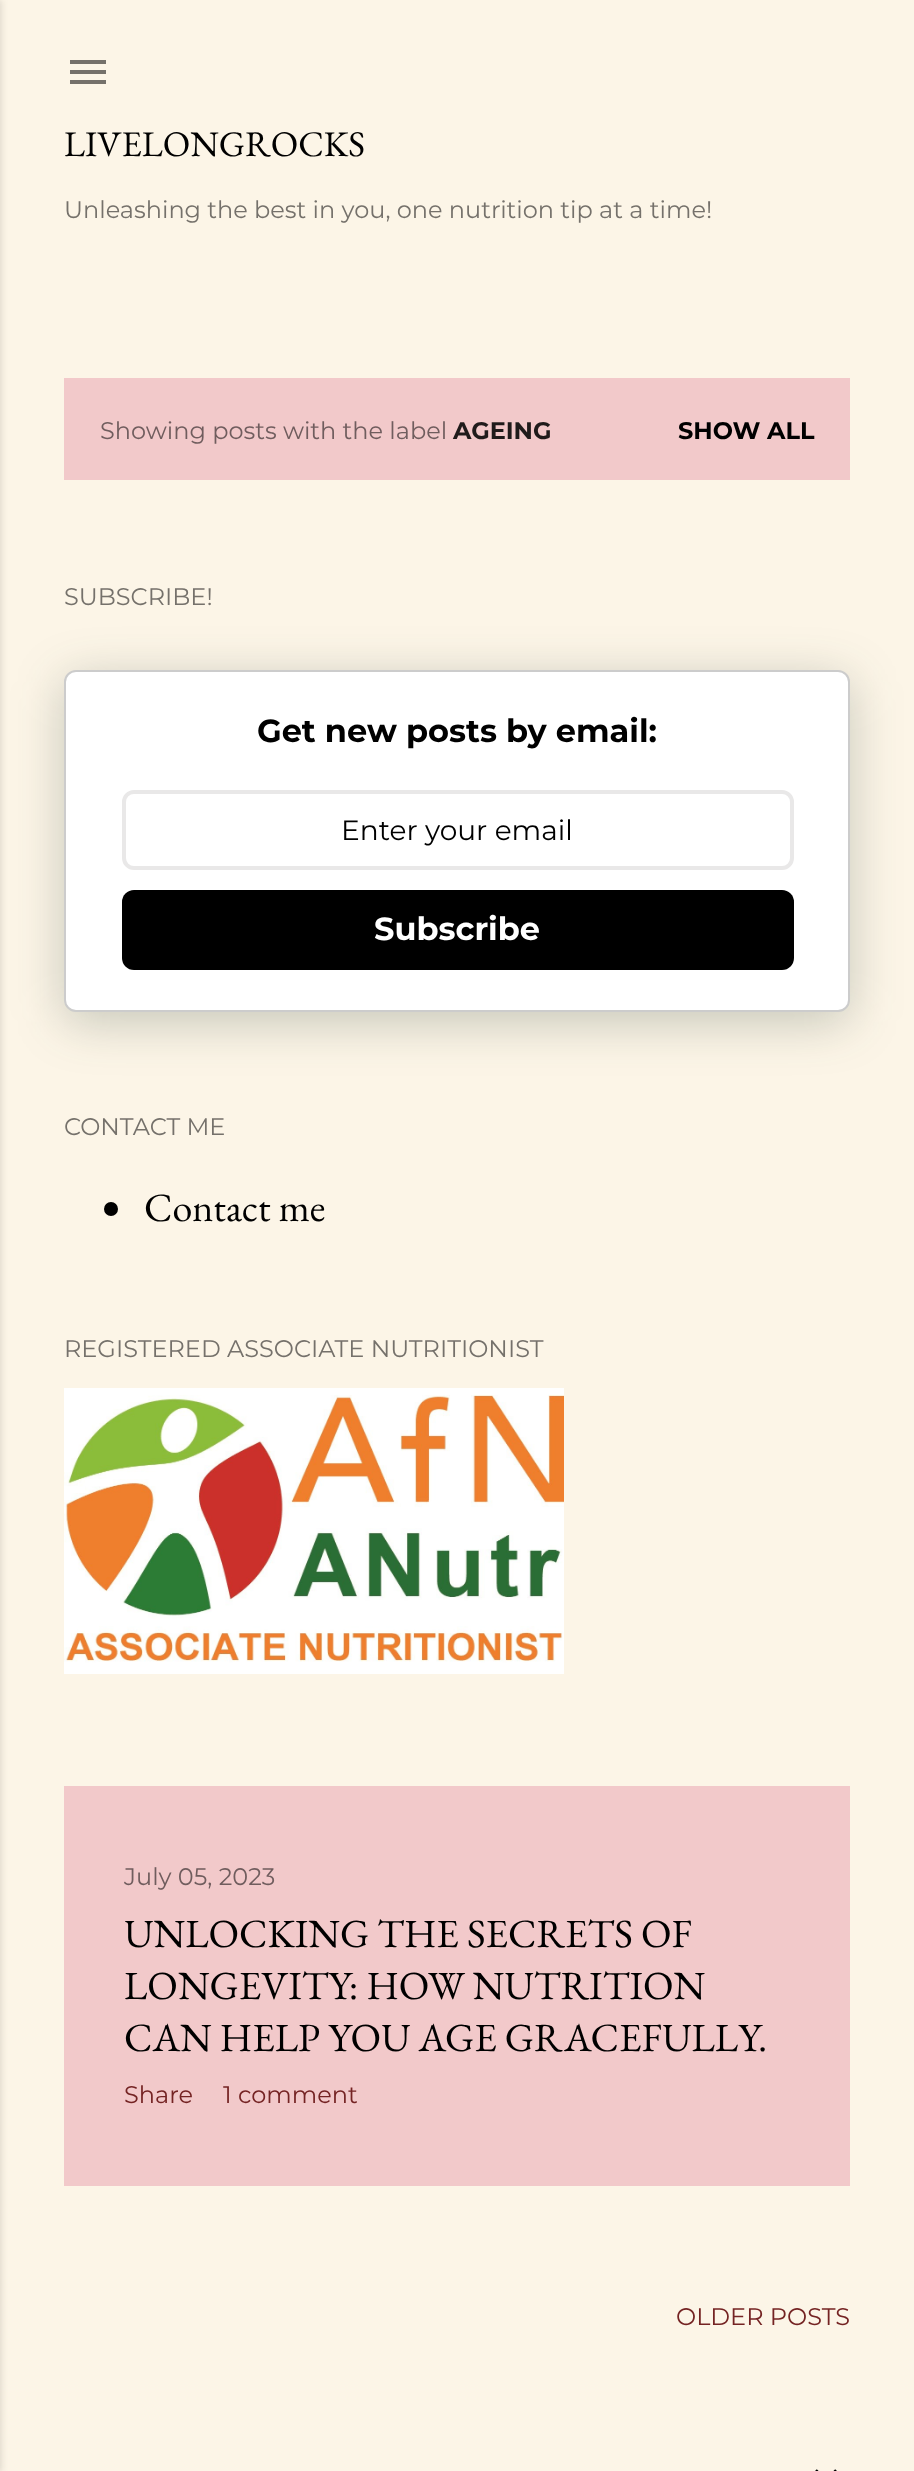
async function draw(canvas) {
  canvas.width = 914
  canvas.height = 2471
  const ctx = canvas.getContext('2d')
  ctx.miterLimit = 4
  ctx.fontKerning = 'normal'
  async function loadImage(src) {
    const img = new Image()
    img.src = src
    await img.decode()
    return img
  }

  ctx.fillStyle = '#fcf5e7'
  ctx.fillRect(0, 0, 914, 2471)
  ctx.fillStyle = '#0000001a'
  ctx.filter = 'blur(3px)'
  ctx.beginPath()
  ctx.rect(-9, 0, 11, 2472)
  ctx.fill()
  ctx.filter = 'none'
  ctx.drawImage(await loadImage('image0.png'), 70, 60, 36, 24)
  ctx.font = '36px EB Garamond'
  ctx.fillStyle = '#000'
  ctx.fillText('LIVELONGROCKS', 64, 156)
  ctx.font = '100 24px Montserrat'
  ctx.fillStyle = '#75716b'
  ctx.fillText('Unleashing the best in you, one nutrition tip at a time!', 64, 218)
  ctx.fillStyle = '#f2c9ca'
  ctx.fillRect(64, 378, 786, 102)
  ctx.fillStyle = '#705d5e'
  ctx.fillText('Showing posts with the label', 100, 439)
  ctx.font = '100 24px "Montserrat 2"'
  ctx.fillStyle = '#201b1b'
  ctx.fillText('AGEING', 453, 439)
  ctx.fillStyle = '#000'
  ctx.fillText('SHOW ALL', 678, 439)
  ctx.font = '100 24px Montserrat'
  ctx.fillStyle = '#75716b'
  ctx.fillText('SUBSCRIBE!', 64, 605)
  ctx.fillStyle = '#223c2f40'
  ctx.filter = 'blur(25px)'
  ctx.beginPath()
  ctx.roundRect(64, 680, 786, 342, 12)
  ctx.fill()
  ctx.filter = 'none'
  ctx.fillStyle = '#fff'
  ctx.beginPath()
  ctx.roundRect(65, 671, 784, 340, 11)
  ctx.fill()
  ctx.strokeStyle = '#ccc'
  ctx.lineWidth = 2
  ctx.stroke()
  ctx.font = '100 32px "Montserrat 2"'
  ctx.fillStyle = '#000'
  ctx.fillText('Get new posts by email:', 257, 742)
  ctx.beginPath()
  ctx.roundRect(124, 792, 668, 76, 10)
  ctx.strokeStyle = '#e9e8e8'
  ctx.lineWidth = 4
  ctx.stroke()
  ctx.font = '100 28px Montserrat'
  ctx.fillText('Enter your email', 341, 840)
  ctx.beginPath()
  ctx.roundRect(122, 890, 672, 80, 12)
  ctx.fill()
  ctx.font = '100 32px "Montserrat 2"'
  ctx.fillStyle = '#fff'
  ctx.fillText('Subscribe', 374, 940)
  ctx.font = '100 24px Montserrat'
  ctx.fillStyle = '#75716b'
  ctx.fillText('CONTACT ME', 64, 1135)
  ctx.fillStyle = '#000'
  ctx.beginPath()
  ctx.arc(111, 1209, 7, 0, 2 * Math.PI)
  ctx.fill()
  ctx.font = '40px EB Garamond'
  ctx.fillText('Contact me', 144, 1221)
  ctx.font = '100 24px Montserrat'
  ctx.fillStyle = '#75716b'
  ctx.fillText('REGISTERED ASSOCIATE NUTRITIONIST', 64, 1357)
  ctx.drawImage(await loadImage('image1.png'), 64, 1388, 500, 286)
  ctx.fillStyle = '#f2c9ca'
  ctx.fillRect(64, 1786, 786, 400)
  ctx.fillStyle = '#705d5e'
  ctx.fillText('July 05, 2023', 124, 1885)
  ctx.font = '40px EB Garamond'
  ctx.fillStyle = '#000'
  ctx.fillText('UNLOCKING THE SECRETS OF', 124, 1947)
  ctx.fillText('LONGEVITY: HOW NUTRITION', 124, 1999)
  ctx.fillText('CAN HELP YOU AGE GRACEFULLY.', 124, 2051)
  ctx.font = '100 24px Montserrat'
  ctx.fillStyle = '#742323'
  ctx.fillText('Share', 124, 2103)
  ctx.fillText('1 comment', 223, 2103)
  ctx.fillText('OLDER POSTS', 676, 2325)
  ctx.drawImage(await loadImage('image2.png'), 815, 2469, 22, 2)
}

draw(document.querySelector('canvas'))
